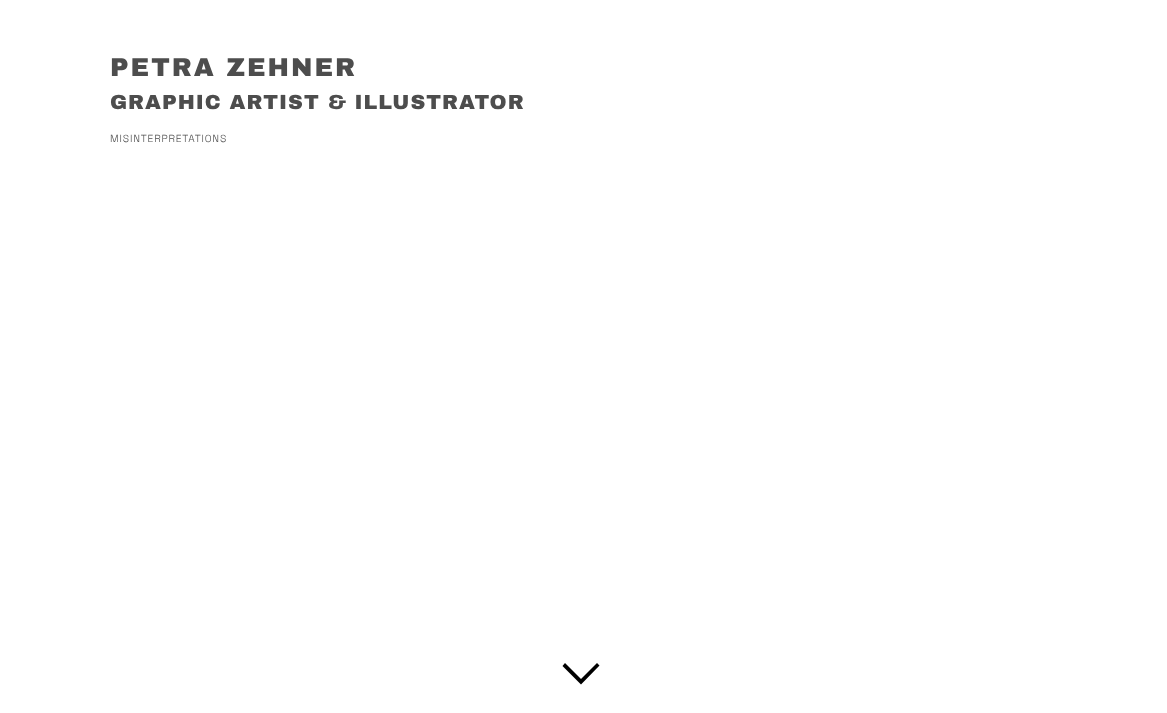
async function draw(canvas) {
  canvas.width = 1167
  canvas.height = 713
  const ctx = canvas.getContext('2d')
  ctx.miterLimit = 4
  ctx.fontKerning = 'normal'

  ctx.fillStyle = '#fff'
  ctx.fillRect(0, 0, 1167, 713)
  ctx.letterSpacing = '2px'
  ctx.font = '900 25.75px Archivo Black'
  ctx.fillStyle = '#4d4d4d'
  ctx.fillText('PETRA ZEHNER', 110, 76)
  ctx.letterSpacing = '1px'
  ctx.font = '900 20.5px Archivo Black'
  ctx.fillText('GRAPHIC ARTIST & ILLUSTRATOR', 110, 109)
  ctx.letterSpacing = '0.8px'
  ctx.font = '300 10.25px Space Grotesk'
  ctx.fillText('MISINTERPRETATIONS', 110, 142)
  ctx.fillStyle = '#000'
  ctx.beginPath()
  ctx.moveTo(581, 684.5)
  ctx.lineTo(599.5, 665.5)
  ctx.lineTo(597, 663)
  ctx.lineTo(581, 679)
  ctx.lineTo(565, 663)
  ctx.lineTo(562.5, 666)
  ctx.closePath()
  ctx.fill()
}

draw(document.querySelector('canvas'))
